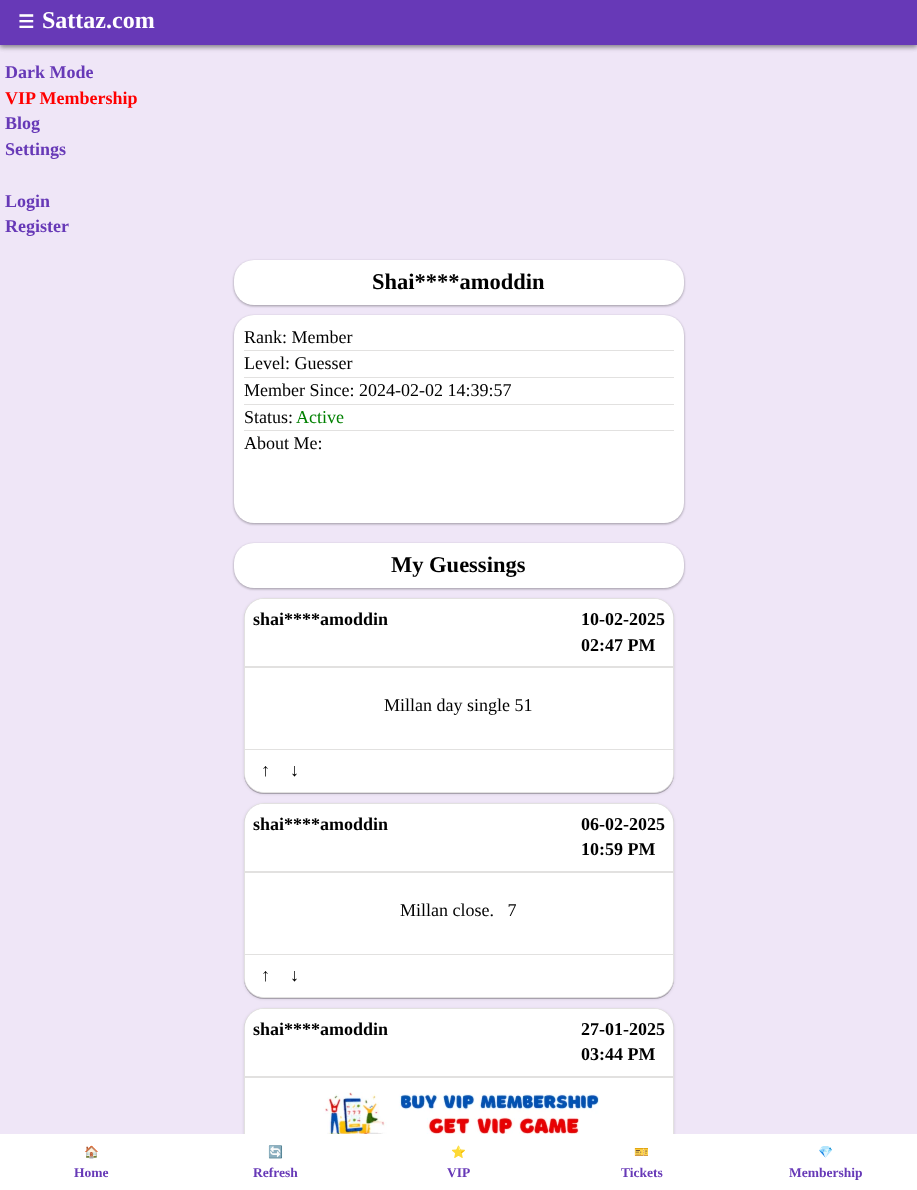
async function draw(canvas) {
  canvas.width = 917
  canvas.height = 1190
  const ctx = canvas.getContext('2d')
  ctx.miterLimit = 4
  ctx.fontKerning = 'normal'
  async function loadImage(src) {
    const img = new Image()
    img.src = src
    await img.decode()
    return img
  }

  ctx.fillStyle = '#efe6f7'
  ctx.fillRect(0, 0, 917, 1190)
  ctx.fillStyle = '#00000042'
  ctx.filter = 'blur(2.5px)'
  ctx.beginPath()
  ctx.rect(0, 2, 917, 45)
  ctx.fill()
  ctx.filter = 'none'
  ctx.filter = 'blur(2.5px)'
  ctx.beginPath()
  ctx.rect(0, 2, 917, 45)
  ctx.fill()
  ctx.filter = 'none'
  ctx.fillStyle = '#6739b7'
  ctx.fillRect(0, 0, 917, 45)
  ctx.font = 'bold 18px DejaVu Sans'
  ctx.fillStyle = '#fff'
  ctx.fillText('☰', 18, 28)
  ctx.font = 'bold 24px Liberation Serif'
  ctx.fillText('Sattaz.com', 42, 28)
  ctx.font = 'bold 18px Liberation Serif'
  ctx.fillStyle = '#6739b7'
  ctx.fillText('Dark Mode', 5, 78)
  ctx.fillStyle = '#f00'
  ctx.fillText('VIP Membership', 5, 104)
  ctx.fillStyle = '#6739b7'
  ctx.fillText('Blog', 5, 129)
  ctx.fillText('Settings', 5, 155)
  ctx.fillText('Login', 5, 207)
  ctx.fillText('Register', 5, 232)
  ctx.fillStyle = '#0000003d'
  ctx.filter = 'blur(1px)'
  ctx.beginPath()
  ctx.roundRect(234, 261, 450, 45, 20)
  ctx.fill()
  ctx.filter = 'none'
  ctx.fillStyle = '#0000001f'
  ctx.filter = 'blur(1.5px)'
  ctx.beginPath()
  ctx.roundRect(234, 261, 450, 45, 20)
  ctx.fill()
  ctx.filter = 'none'
  ctx.fillStyle = '#fff'
  ctx.beginPath()
  ctx.roundRect(234, 260, 450, 45, 20)
  ctx.fill()
  ctx.font = 'bold 22.5px Liberation Serif'
  ctx.fillStyle = '#000'
  ctx.fillText('Shai****amoddin', 372, 289)
  ctx.fillStyle = '#0000003d'
  ctx.filter = 'blur(1px)'
  ctx.beginPath()
  ctx.roundRect(234, 316, 450, 208, 20)
  ctx.fill()
  ctx.filter = 'none'
  ctx.fillStyle = '#0000001f'
  ctx.filter = 'blur(1.5px)'
  ctx.beginPath()
  ctx.roundRect(234, 316, 450, 208, 20)
  ctx.fill()
  ctx.filter = 'none'
  ctx.fillStyle = '#fff'
  ctx.beginPath()
  ctx.roundRect(234, 315, 450, 208, 20)
  ctx.fill()
  ctx.font = '18px Liberation Serif'
  ctx.fillStyle = '#000'
  ctx.fillText('Rank: Member', 244, 343)
  ctx.fillStyle = '#e2e1e0'
  ctx.fillRect(244, 350, 430, 1)
  ctx.fillStyle = '#000'
  ctx.fillText('Level: Guesser', 244, 369)
  ctx.fillStyle = '#e2e1e0'
  ctx.fillRect(244, 377, 430, 1)
  ctx.fillStyle = '#000'
  ctx.fillText('Member Since: 2024-02-02 14:39:57', 244, 396)
  ctx.fillStyle = '#e2e1e0'
  ctx.fillRect(244, 404, 430, 1)
  ctx.fillStyle = '#000'
  ctx.fillText('Status:', 244, 423)
  ctx.fillStyle = '#008000'
  ctx.fillText('Active', 296, 423)
  ctx.fillStyle = '#e2e1e0'
  ctx.fillRect(244, 430, 430, 1)
  ctx.fillStyle = '#000'
  ctx.fillText('About Me:', 244, 449)
  ctx.fillStyle = '#0000003d'
  ctx.filter = 'blur(1px)'
  ctx.beginPath()
  ctx.roundRect(234, 544, 450, 45, 20)
  ctx.fill()
  ctx.filter = 'none'
  ctx.fillStyle = '#0000001f'
  ctx.filter = 'blur(1.5px)'
  ctx.beginPath()
  ctx.roundRect(234, 544, 450, 45, 20)
  ctx.fill()
  ctx.filter = 'none'
  ctx.fillStyle = '#fff'
  ctx.beginPath()
  ctx.roundRect(234, 543, 450, 45, 20)
  ctx.fill()
  ctx.font = 'bold 22.5px Liberation Serif'
  ctx.fillStyle = '#000'
  ctx.fillText('My Guessings', 391, 572)
  ctx.fillStyle = '#0000003d'
  ctx.filter = 'blur(0.5px)'
  ctx.beginPath()
  ctx.roundRect(244, 599, 430, 195, 20)
  ctx.fill()
  ctx.filter = 'none'
  ctx.fillStyle = '#0000001f'
  ctx.filter = 'blur(1.5px)'
  ctx.beginPath()
  ctx.roundRect(244, 599, 430, 195, 20)
  ctx.fill()
  ctx.filter = 'none'
  ctx.fillStyle = '#fff'
  ctx.beginPath()
  ctx.roundRect(244.5, 598.5, 429, 194, 19.5)
  ctx.fill()
  ctx.strokeStyle = '#e2e1e0'
  ctx.stroke()
  ctx.beginPath()
  ctx.roundRect(245, 599, 428, 68, [19, 19, 0, 0])
  ctx.fill()
  ctx.fillStyle = '#e2e1e0'
  ctx.fillRect(245, 666, 428, 1)
  ctx.font = 'bold 18px Liberation Serif'
  ctx.fillStyle = '#000'
  ctx.fillText('shai****amoddin', 253, 625)
  ctx.fillText('10-02-2025', 581, 625)
  ctx.fillText('02:47 PM', 581, 651)
  ctx.fillStyle = '#e2e1e0'
  ctx.fillRect(245, 667, 428, 1)
  ctx.font = '18px Liberation Serif'
  ctx.fillStyle = '#000'
  ctx.fillText('Millan day single 51', 384, 711)
  ctx.fillStyle = '#fff'
  ctx.beginPath()
  ctx.roundRect(245, 749, 428, 43, [0, 0, 19, 19])
  ctx.fill()
  ctx.fillStyle = '#e2e1e0'
  ctx.fillRect(245, 749, 428, 1)
  ctx.fillStyle = '#000'
  ctx.fillText('↑', 261, 776)
  ctx.fillText('↓', 290, 776)
  ctx.fillStyle = '#0000003d'
  ctx.filter = 'blur(0.5px)'
  ctx.beginPath()
  ctx.roundRect(244, 804, 430, 195, 20)
  ctx.fill()
  ctx.filter = 'none'
  ctx.fillStyle = '#0000001f'
  ctx.filter = 'blur(1.5px)'
  ctx.beginPath()
  ctx.roundRect(244, 804, 430, 195, 20)
  ctx.fill()
  ctx.filter = 'none'
  ctx.fillStyle = '#fff'
  ctx.beginPath()
  ctx.roundRect(244.5, 803.5, 429, 194, 19.5)
  ctx.fill()
  ctx.stroke()
  ctx.beginPath()
  ctx.roundRect(245, 804, 428, 68, [19, 19, 0, 0])
  ctx.fill()
  ctx.fillStyle = '#e2e1e0'
  ctx.fillRect(245, 871, 428, 1)
  ctx.font = 'bold 18px Liberation Serif'
  ctx.fillStyle = '#000'
  ctx.fillText('shai****amoddin', 253, 830)
  ctx.fillText('06-02-2025', 581, 830)
  ctx.fillText('10:59 PM', 581, 855)
  ctx.fillStyle = '#e2e1e0'
  ctx.fillRect(245, 872, 428, 1)
  ctx.font = '18px Liberation Serif'
  ctx.fillStyle = '#000'
  ctx.fillText('Millan close.   7', 400, 916)
  ctx.fillStyle = '#fff'
  ctx.beginPath()
  ctx.roundRect(245, 954, 428, 43, [0, 0, 19, 19])
  ctx.fill()
  ctx.fillStyle = '#e2e1e0'
  ctx.fillRect(245, 954, 428, 1)
  ctx.fillStyle = '#000'
  ctx.fillText('↑', 261, 981)
  ctx.fillText('↓', 290, 981)
  ctx.fillStyle = '#0000003d'
  ctx.filter = 'blur(0.5px)'
  ctx.beginPath()
  ctx.roundRect(244, 1009, 430, 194, 20)
  ctx.fill()
  ctx.filter = 'none'
  ctx.fillStyle = '#0000001f'
  ctx.filter = 'blur(1.5px)'
  ctx.beginPath()
  ctx.roundRect(244, 1009, 430, 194, 20)
  ctx.fill()
  ctx.filter = 'none'
  ctx.fillStyle = '#fff'
  ctx.beginPath()
  ctx.roundRect(244.5, 1008.5, 429, 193, 19.5)
  ctx.fill()
  ctx.stroke()
  ctx.beginPath()
  ctx.roundRect(245, 1009, 428, 68, [19, 19, 0, 0])
  ctx.fill()
  ctx.fillStyle = '#e2e1e0'
  ctx.fillRect(245, 1076, 428, 1)
  ctx.font = 'bold 18px Liberation Serif'
  ctx.fillStyle = '#000'
  ctx.fillText('shai****amoddin', 253, 1035)
  ctx.fillText('27-01-2025', 581, 1035)
  ctx.fillText('03:44 PM', 581, 1060)
  ctx.fillStyle = '#e2e1e0'
  ctx.fillRect(245, 1077, 428, 1)
  ctx.drawImage(await loadImage('image0.png'), 323, 1092, 276, 42)
  ctx.fillStyle = '#fff'
  ctx.fillRect(0, 1134, 917, 56)
  ctx.font = 'bold 12px Noto Color Emoji'
  ctx.fillStyle = '#6739b7'
  ctx.fillText('🏠', 84, 1156)
  ctx.font = 'bold 13.5px Liberation Serif'
  ctx.fillText('Home', 74, 1177)
  ctx.font = 'bold 12px Noto Color Emoji'
  ctx.fillText('🔄', 268, 1156)
  ctx.font = 'bold 13.5px Liberation Serif'
  ctx.fillText('Refresh', 253, 1177)
  ctx.font = 'bold 12px Noto Color Emoji'
  ctx.fillText('⭐', 451, 1156)
  ctx.font = 'bold 13.5px Liberation Serif'
  ctx.fillText('VIP', 447, 1177)
  ctx.font = 'bold 12px Noto Color Emoji'
  ctx.fillText('🎫', 634, 1156)
  ctx.font = 'bold 13.5px Liberation Serif'
  ctx.fillText('Tickets', 621, 1177)
  ctx.font = 'bold 12px Noto Color Emoji'
  ctx.fillText('💎', 818, 1156)
  ctx.font = 'bold 13.5px Liberation Serif'
  ctx.fillText('Membership', 789, 1177)
}

draw(document.querySelector('canvas'))
